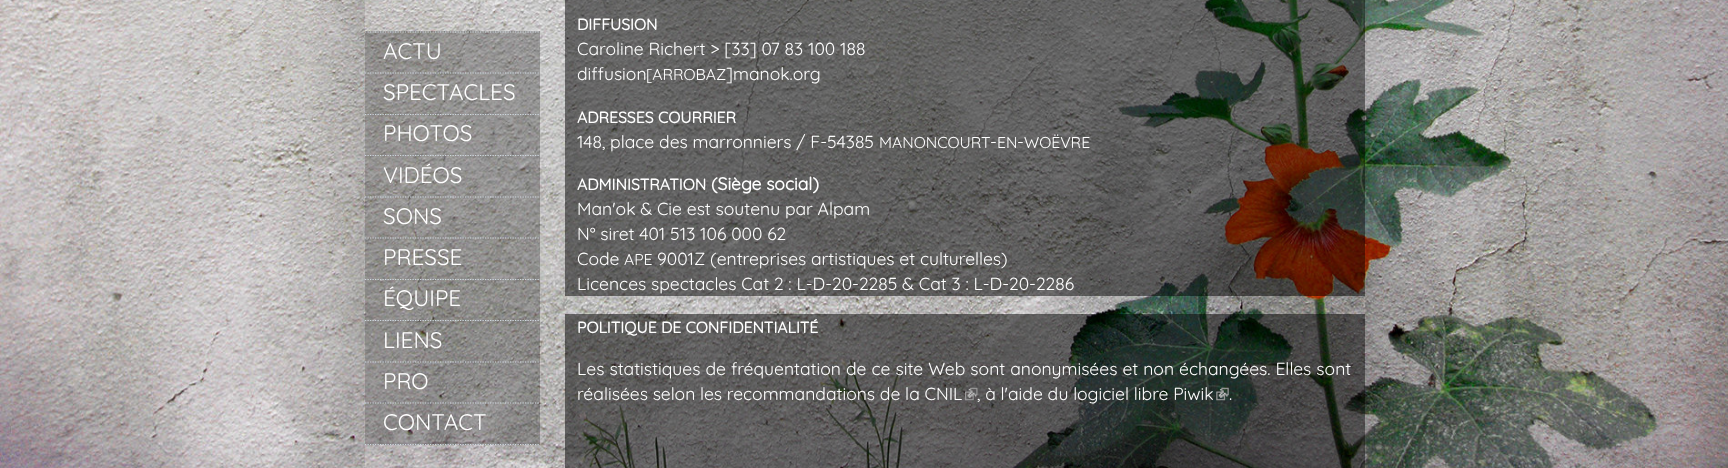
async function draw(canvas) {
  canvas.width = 1728
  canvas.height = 468
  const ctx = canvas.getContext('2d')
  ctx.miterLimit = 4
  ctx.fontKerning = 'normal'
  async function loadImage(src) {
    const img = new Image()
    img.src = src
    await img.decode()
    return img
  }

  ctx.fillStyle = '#fff'
  ctx.fillRect(0, 0, 1728, 468)
  ctx.drawImage(await loadImage('image0.png'), 0, 0, 1728, 468)
  ctx.save()
  ctx.beginPath()
  ctx.moveTo(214, 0)
  ctx.lineTo(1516, 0)
  ctx.lineTo(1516, 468)
  ctx.lineTo(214, 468)
  ctx.closePath()
  ctx.moveTo(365, -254)
  ctx.lineTo(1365, -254)
  ctx.lineTo(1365, 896)
  ctx.lineTo(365, 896)
  ctx.closePath()
  ctx.clip('evenodd')
  ctx.fillStyle = '#00000033'
  ctx.filter = 'blur(50px)'
  ctx.beginPath()
  ctx.rect(365, -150, 1000, 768)
  ctx.fill()
  ctx.filter = 'none'
  ctx.restore()
  ctx.fillStyle = '#00000040'
  ctx.fillRect(365, 31, 175, 43)
  ctx.drawImage(await loadImage('image1.png'), 369, 47, 6, 10)
  ctx.beginPath()
  ctx.moveTo(365, 32)
  ctx.lineTo(540, 32)
  ctx.strokeStyle = '#ced8df'
  ctx.lineWidth = 1.2
  ctx.setLineDash([1.25, 1.25])
  ctx.stroke()
  ctx.beginPath()
  ctx.moveTo(365, 73)
  ctx.lineTo(540, 73)
  ctx.stroke()
  ctx.font = '22.5px Quicksand'
  ctx.fillStyle = '#fff'
  ctx.fillText('ACTU', 383, 59)
  ctx.fillStyle = '#00000040'
  ctx.fillRect(365, 74, 175, 41)
  ctx.drawImage(await loadImage('image2.png'), 369, 89, 6, 9)
  ctx.beginPath()
  ctx.moveTo(365, 114.5)
  ctx.lineTo(540, 114.5)
  ctx.stroke()
  ctx.fillStyle = '#fff'
  ctx.fillText('SPECTACLES', 383, 100)
  ctx.fillStyle = '#00000040'
  ctx.fillRect(365, 115, 175, 41)
  ctx.drawImage(await loadImage('image3.png'), 369, 130, 6, 9)
  ctx.beginPath()
  ctx.moveTo(365, 155.5)
  ctx.lineTo(540, 155.5)
  ctx.stroke()
  ctx.fillStyle = '#fff'
  ctx.fillText('PHOTOS', 383, 141)
  ctx.fillStyle = '#00000040'
  ctx.fillRect(365, 156, 175, 42)
  ctx.drawImage(await loadImage('image4.png'), 369, 171, 6, 9)
  ctx.beginPath()
  ctx.moveTo(365, 197)
  ctx.lineTo(540, 197)
  ctx.stroke()
  ctx.fillStyle = '#fff'
  ctx.fillText('VIDÉOS', 383, 183)
  ctx.fillStyle = '#00000040'
  ctx.fillRect(365, 198, 175, 41)
  ctx.drawImage(await loadImage('image5.png'), 369, 212, 6, 10)
  ctx.beginPath()
  ctx.moveTo(365, 238)
  ctx.lineTo(540, 238)
  ctx.stroke()
  ctx.fillStyle = '#fff'
  ctx.fillText('SONS', 383, 224)
  ctx.fillStyle = '#00000040'
  ctx.fillRect(365, 239, 175, 41)
  ctx.drawImage(await loadImage('image6.png'), 369, 253, 6, 9)
  ctx.beginPath()
  ctx.moveTo(365, 279.5)
  ctx.lineTo(540, 279.5)
  ctx.stroke()
  ctx.fillStyle = '#fff'
  ctx.fillText('PRESSE', 383, 265)
  ctx.fillStyle = '#00000040'
  ctx.fillRect(365, 280, 175, 41)
  ctx.drawImage(await loadImage('image7.png'), 369, 295, 6, 9)
  ctx.beginPath()
  ctx.moveTo(365, 320.5)
  ctx.lineTo(540, 320.5)
  ctx.stroke()
  ctx.fillStyle = '#fff'
  ctx.fillText('ÉQUIPE', 383, 306)
  ctx.fillStyle = '#00000040'
  ctx.fillRect(365, 321, 175, 42)
  ctx.drawImage(await loadImage('image8.png'), 369, 336, 6, 9)
  ctx.beginPath()
  ctx.moveTo(365, 362)
  ctx.lineTo(540, 362)
  ctx.stroke()
  ctx.fillStyle = '#fff'
  ctx.fillText('LIENS', 383, 348)
  ctx.fillStyle = '#00000040'
  ctx.fillRect(365, 363, 175, 41)
  ctx.drawImage(await loadImage('image9.png'), 369, 377, 6, 9)
  ctx.beginPath()
  ctx.moveTo(365, 403)
  ctx.lineTo(540, 403)
  ctx.stroke()
  ctx.fillStyle = '#fff'
  ctx.fillText('PRO', 383, 389)
  ctx.fillStyle = '#00000040'
  ctx.fillRect(365, 404, 175, 41)
  ctx.drawImage(await loadImage('image10.png'), 369, 419, 6, 9)
  ctx.beginPath()
  ctx.moveTo(365, 444.5)
  ctx.lineTo(540, 444.5)
  ctx.stroke()
  ctx.fillStyle = '#fff'
  ctx.fillText('CONTACT', 383, 430)
  ctx.fillStyle = '#00000080'
  ctx.fillRect(565, 0, 800, 296)
  ctx.font = 'bold 15.75px Quicksand'
  ctx.fillStyle = '#fff'
  ctx.fillText('DIFFUSION', 577, 30)
  ctx.font = '17.5px Quicksand'
  ctx.fillText('Caroline Richert > [33] 07 83 100 188', 577, 55)
  ctx.fillText('diffusion', 577, 80)
  ctx.font = '15.75px Quicksand'
  ctx.fillText('[ARROBAZ', 646, 80)
  ctx.font = '17.5px Quicksand'
  ctx.fillText(']manok.org', 726, 80)
  ctx.font = 'bold 15.75px Quicksand'
  ctx.fillText('ADRESSES', 577, 123)
  ctx.fillText('COURRIER', 658, 123)
  ctx.font = '17.5px Quicksand'
  ctx.fillText('148, place des marronniers / F-54385', 577, 148)
  ctx.font = '15.75px Quicksand'
  ctx.fillText('MANONCOURT', 879, 148)
  ctx.font = '17.5px Quicksand'
  ctx.fillText('-', 990, 148)
  ctx.font = '15.75px Quicksand'
  ctx.fillText('EN', 997, 148)
  ctx.font = '17.5px Quicksand'
  ctx.fillText('-', 1017, 148)
  ctx.font = '15.75px Quicksand'
  ctx.fillText('WOËVRE', 1024, 148)
  ctx.font = 'bold 15.75px Quicksand'
  ctx.fillText('ADMINISTRATION', 577, 190)
  ctx.font = 'bold 17.5px Quicksand'
  ctx.fillText('(Siège social)', 711, 190)
  ctx.font = '17.5px Quicksand'
  ctx.fillText('Man\'ok & Cie est soutenu par Alpam', 577, 215)
  ctx.fillText('N° siret 401 513 106 000 62', 577, 240)
  ctx.fillText('Code', 577, 265)
  ctx.font = '15.75px Quicksand'
  ctx.fillText('APE', 624, 265)
  ctx.font = '17.5px Quicksand'
  ctx.fillText('9001Z (entreprises artistiques et culturelles)', 657, 265)
  ctx.fillText('Licences spectacles Cat 2 : L-D-20-2285 & Cat 3 : L-D-20-2286', 577, 290)
  ctx.fillStyle = '#00000080'
  ctx.fillRect(565, 314, 800, 154)
  ctx.font = 'bold 15.75px Quicksand'
  ctx.fillStyle = '#fff'
  ctx.fillText('POLITIQUE DE CONFIDENTIALITÉ', 577, 333)
  ctx.wordSpacing = '0.25px'
  ctx.font = '17.5px Quicksand'
  ctx.fillText('Les statistiques de fréquentation de ce site Web sont anonymisées et non échangées. Elles sont', 577, 375)
  ctx.wordSpacing = '0px'
  ctx.fillText('réalisées selon les recommandations de la CNIL', 577, 400)
  ctx.drawImage(await loadImage('image11.png'), 965, 387, 13, 14)
  ctx.fillText(', à l\'aide du logiciel libre Piwik', 977, 400)
  ctx.drawImage(await loadImage('image12.png'), 1216, 387, 13, 14)
  ctx.fillText('.', 1229, 400)
}

draw(document.querySelector('canvas'))
